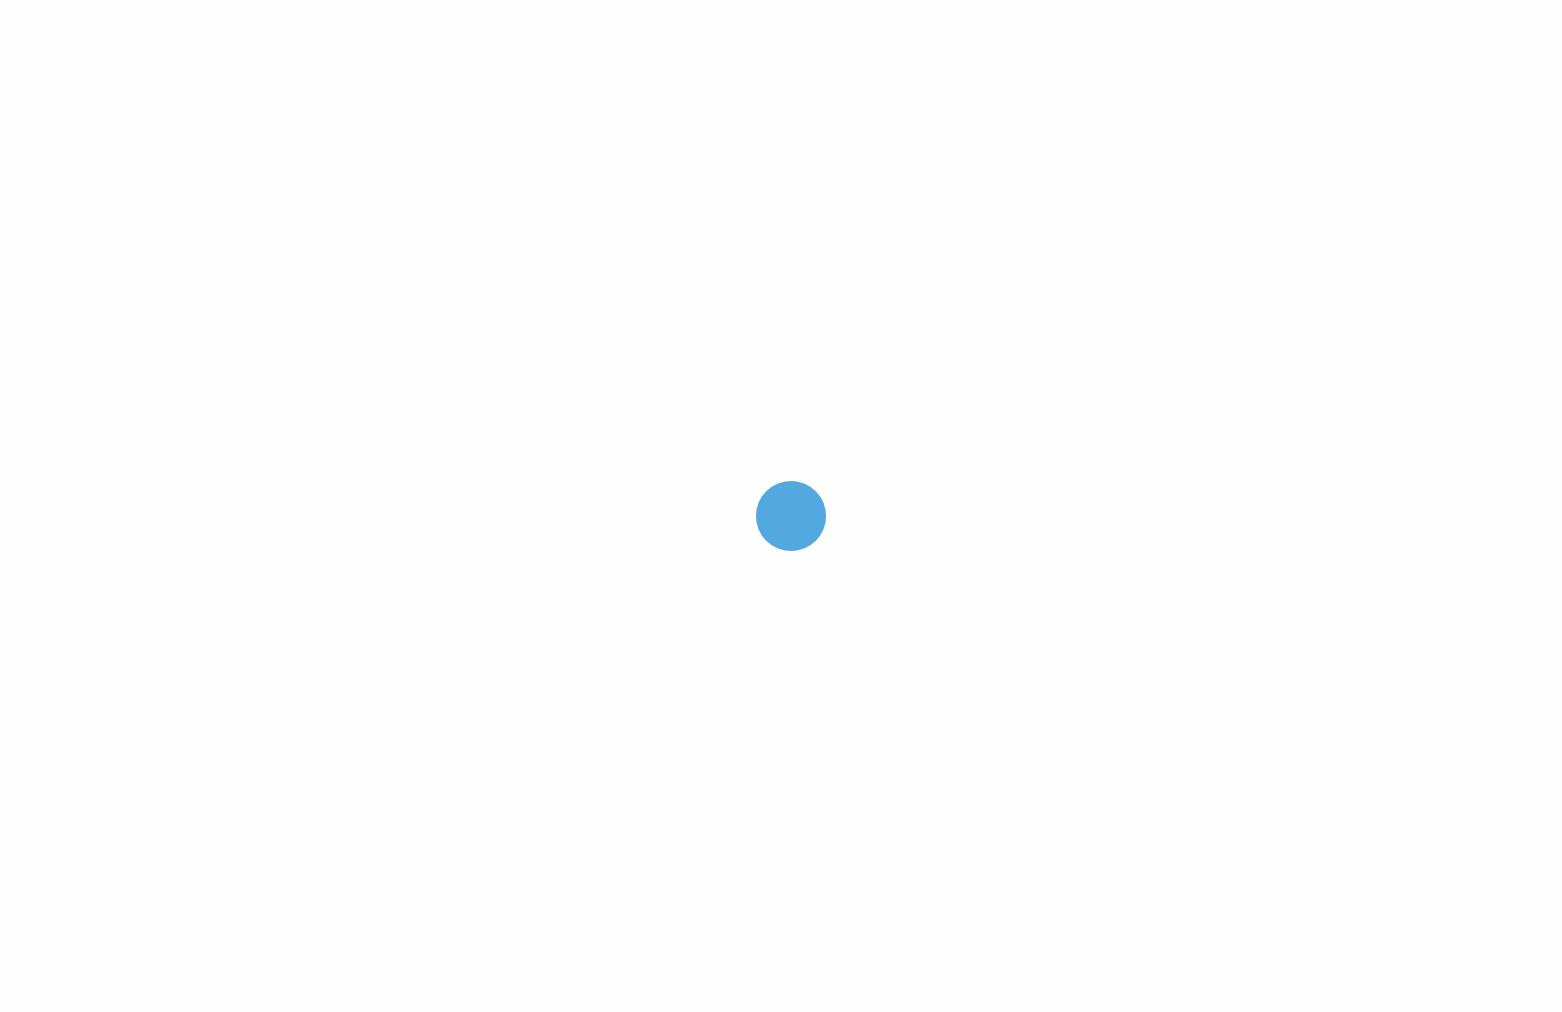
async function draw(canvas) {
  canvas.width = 1562
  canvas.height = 1012
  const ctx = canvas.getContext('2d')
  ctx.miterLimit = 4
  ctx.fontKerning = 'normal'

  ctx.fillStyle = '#fefefe'
  ctx.fillRect(0, 0, 1562, 1012)
  ctx.fillStyle = '#85c1e9'
  ctx.beginPath()
  ctx.arc(791, 516, 35, 0, 2 * Math.PI)
  ctx.fill()
  ctx.fillStyle = '#3498db99'
  ctx.beginPath()
  ctx.arc(791, 516, 35, 0, 2 * Math.PI)
  ctx.fill()
}

draw(document.querySelector('canvas'))
